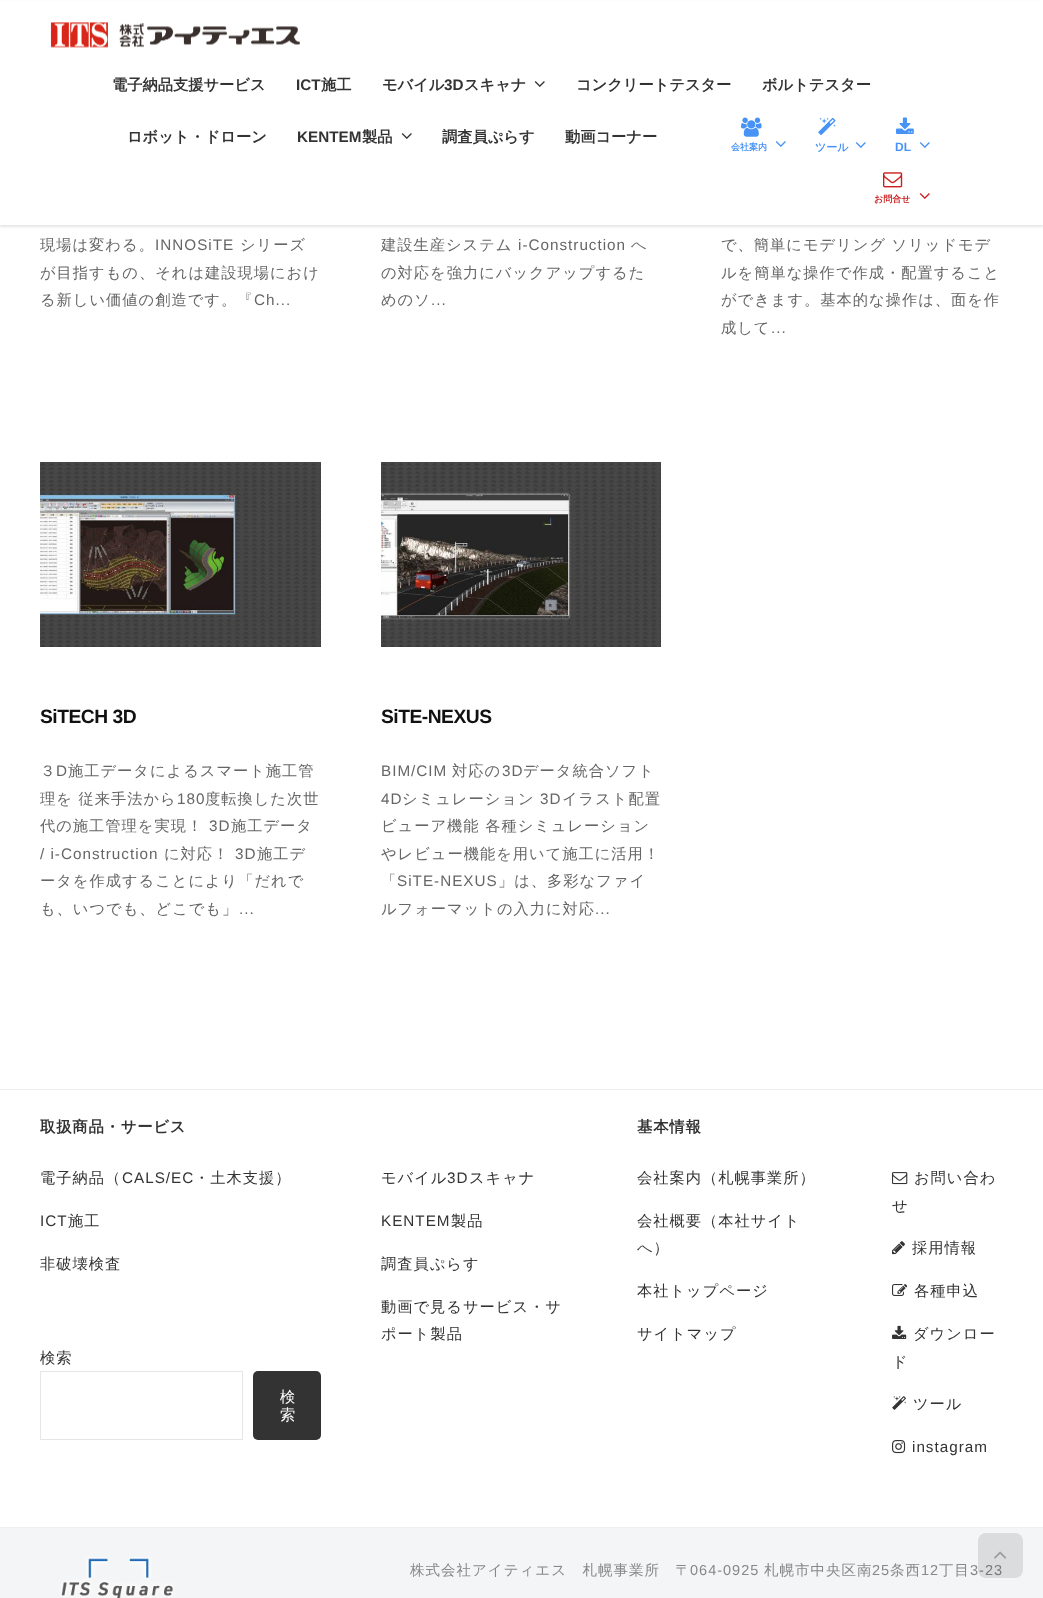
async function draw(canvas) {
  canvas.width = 1043
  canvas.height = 1598
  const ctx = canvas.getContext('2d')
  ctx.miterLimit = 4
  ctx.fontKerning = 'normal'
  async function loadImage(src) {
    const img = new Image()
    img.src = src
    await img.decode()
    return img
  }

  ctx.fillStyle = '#fff'
  ctx.fillRect(0, 0, 1043, 1598)
  ctx.fillStyle = '#0000001a'
  ctx.filter = 'blur(1px)'
  ctx.beginPath()
  ctx.rect(0, 2, 1043, 225)
  ctx.fill()
  ctx.filter = 'none'
  ctx.fillStyle = '#fff'
  ctx.fillRect(0, 1, 1043, 224)
  ctx.drawImage(await loadImage('image0.png'), 50, 22, 250, 26)
  ctx.font = 'bold 15.25px WenQuanYi Zen Hei'
  ctx.fillStyle = '#333'
  ctx.fillText('電子納品支援サービス', 112, 90)
  ctx.font = 'bold 15.25px Liberation Sans'
  ctx.fillText('ICT', 296, 90)
  ctx.font = 'bold 15.25px WenQuanYi Zen Hei'
  ctx.fillText('施工', 321, 90)
  ctx.fillText('モバイル', 382, 90)
  ctx.font = 'bold 15.25px Liberation Sans'
  ctx.fillText('3D', 444, 90)
  ctx.font = 'bold 15.25px WenQuanYi Zen Hei'
  ctx.fillText('スキャナ', 464, 90)
  ctx.drawImage(await loadImage('image1.png'), 534, 81, 11, 6)
  ctx.fillText('コンクリートテスター', 576, 90)
  ctx.fillText('ボルトテスター', 762, 90)
  ctx.fillText('ロボット・ドローン', 127, 142)
  ctx.font = 'bold 15.25px Liberation Sans'
  ctx.fillText('KENTEM', 297, 142)
  ctx.font = 'bold 15.25px WenQuanYi Zen Hei'
  ctx.fillText('製品', 362, 142)
  ctx.drawImage(await loadImage('image1.png'), 401, 133, 11, 6)
  ctx.fillText('調査員ぷらす', 442, 142)
  ctx.fillText('動画コーナー', 565, 142)
  ctx.drawImage(await loadImage('image2.png'), 741, 117, 21, 20)
  ctx.font = 'bold 9px WenQuanYi Zen Hei'
  ctx.fillStyle = '#4693f5'
  ctx.fillText('会社案内', 731, 150)
  ctx.drawImage(await loadImage('image3.png'), 775, 141, 11, 6)
  ctx.drawImage(await loadImage('image4.png'), 818, 117, 18, 18)
  ctx.font = 'bold 11px WenQuanYi Zen Hei'
  ctx.fillText('ツール', 815, 151)
  ctx.drawImage(await loadImage('image3.png'), 855, 142, 11, 6)
  ctx.drawImage(await loadImage('image5.png'), 896, 117, 18, 17)
  ctx.font = 'bold 12px Liberation Sans'
  ctx.fillText('DL', 895, 151)
  ctx.drawImage(await loadImage('image3.png'), 919, 142, 11, 6)
  ctx.drawImage(await loadImage('image6.png'), 883, 172, 20, 16)
  ctx.font = 'bold 9px WenQuanYi Zen Hei'
  ctx.fillStyle = '#ca1f1f'
  ctx.fillText('お問合せ', 874, 202)
  ctx.drawImage(await loadImage('image7.png'), 919, 193, 11, 6)
  ctx.letterSpacing = '1px'
  ctx.font = '500 15.25px WenQuanYi Zen Hei'
  ctx.fillStyle = '#666'
  ctx.fillText('現場は変わる。', 40, 250)
  ctx.font = '15.25px Liberation Sans'
  ctx.fillText('INNOSiTE', 155, 250)
  ctx.font = '500 15.25px WenQuanYi Zen Hei'
  ctx.fillText('シリーズ', 240, 250)
  ctx.fillText('が目指すもの、それは建設現場におけ', 40, 278)
  ctx.fillText('る新しい価値の創造です。『', 40, 305)
  ctx.font = '15.25px Liberation Sans'
  ctx.fillText('Ch...', 254, 305)
  ctx.font = '500 15.25px WenQuanYi Zen Hei'
  ctx.fillText('建設生産システム', 381, 250)
  ctx.font = '15.25px Liberation Sans'
  ctx.fillText('i-Construction', 518, 250)
  ctx.font = '500 15.25px WenQuanYi Zen Hei'
  ctx.fillText('へ', 631, 250)
  ctx.fillText('の対応を強力にバックアップするた', 381, 278)
  ctx.fillText('めのソ', 381, 305)
  ctx.font = '15.25px Liberation Sans'
  ctx.fillText('...', 431, 305)
  ctx.font = '500 15.25px WenQuanYi Zen Hei'
  ctx.fillText('で、簡単にモデリング ソリッドモデ', 721, 250)
  ctx.fillText('ルを簡単な操作で作成・配置すること', 721, 278)
  ctx.fillText('ができます。基本的な操作は、面を作', 721, 305)
  ctx.fillText('成して', 721, 333)
  ctx.font = '15.25px Liberation Sans'
  ctx.fillText('...', 771, 333)
  ctx.drawImage(await loadImage('image8.png'), 40, 462, 281, 185)
  ctx.letterSpacing = '-0.5px'
  ctx.font = 'bold 19.25px Liberation Sans'
  ctx.fillStyle = '#111'
  ctx.fillText('SiTECH 3D', 40, 723)
  ctx.letterSpacing = '1px'
  ctx.font = '500 15.25px WenQuanYi Zen Hei'
  ctx.fillStyle = '#666'
  ctx.fillText('３', 40, 776)
  ctx.font = '15.25px Liberation Sans'
  ctx.fillText('D', 56, 776)
  ctx.font = '500 15.25px WenQuanYi Zen Hei'
  ctx.fillText('施工データによるスマート施工管', 68, 776)
  ctx.fillText('理を 従来手法から', 40, 804)
  ctx.font = '15.25px Liberation Sans'
  ctx.fillText('180', 177, 804)
  ctx.font = '500 15.25px WenQuanYi Zen Hei'
  ctx.fillText('度転換した次世', 205, 804)
  ctx.fillText('代の施工管理を実現！', 40, 831)
  ctx.font = '15.25px Liberation Sans'
  ctx.fillText('3D', 209, 831)
  ctx.font = '500 15.25px WenQuanYi Zen Hei'
  ctx.fillText('施工データ', 231, 831)
  ctx.font = '15.25px Liberation Sans'
  ctx.fillText('/ i-Construction', 40, 859)
  ctx.font = '500 15.25px WenQuanYi Zen Hei'
  ctx.fillText('に対応！', 164, 859)
  ctx.font = '15.25px Liberation Sans'
  ctx.fillText('3D', 235, 859)
  ctx.font = '500 15.25px WenQuanYi Zen Hei'
  ctx.fillText('施工デ', 257, 859)
  ctx.fillText('ータを作成することにより「だれで', 40, 886)
  ctx.fillText('も、いつでも、どこでも」', 40, 914)
  ctx.font = '15.25px Liberation Sans'
  ctx.fillText('...', 239, 914)
  ctx.drawImage(await loadImage('image9.png'), 381, 462, 280, 185)
  ctx.letterSpacing = '-0.5px'
  ctx.font = 'bold 19.25px Liberation Sans'
  ctx.fillStyle = '#111'
  ctx.fillText('SiTE-NEXUS', 381, 723)
  ctx.letterSpacing = '1px'
  ctx.font = '15.25px Liberation Sans'
  ctx.fillStyle = '#666'
  ctx.fillText('BIM/CIM', 381, 776)
  ctx.font = '500 15.25px WenQuanYi Zen Hei'
  ctx.fillText('対応の', 452, 776)
  ctx.font = '15.25px Liberation Sans'
  ctx.fillText('3D', 502, 776)
  ctx.font = '500 15.25px WenQuanYi Zen Hei'
  ctx.fillText('データ統合ソフト', 523, 776)
  ctx.font = '15.25px Liberation Sans'
  ctx.fillText('4D', 381, 804)
  ctx.font = '500 15.25px WenQuanYi Zen Hei'
  ctx.fillText('シミュレーション', 402, 804)
  ctx.font = '15.25px Liberation Sans'
  ctx.fillText('3D', 540, 804)
  ctx.font = '500 15.25px WenQuanYi Zen Hei'
  ctx.fillText('イラスト配置', 562, 804)
  ctx.fillText('ビューア機能 各種シミュレーション', 381, 831)
  ctx.fillText('やレビュー機能を用いて施工に活用！', 381, 859)
  ctx.fillText('「', 381, 886)
  ctx.font = '15.25px Liberation Sans'
  ctx.fillText('SiTE-NEXUS', 397, 886)
  ctx.font = '500 15.25px WenQuanYi Zen Hei'
  ctx.fillText('」は、多彩なファイ', 498, 886)
  ctx.fillText('ルフォーマットの入力に対応', 381, 914)
  ctx.font = '15.25px Liberation Sans'
  ctx.fillText('...', 595, 914)
  ctx.fillStyle = '#eee'
  ctx.fillRect(0, 1089, 1043, 1)
  ctx.letterSpacing = '0.75px'
  ctx.font = 'bold 15.4px WenQuanYi Zen Hei'
  ctx.fillStyle = '#333'
  ctx.fillText('取扱商品・サービス', 40, 1132)
  ctx.letterSpacing = '1px'
  ctx.font = '500 15.25px WenQuanYi Zen Hei'
  ctx.fillText('電子納品（', 40, 1183)
  ctx.font = '15.25px Liberation Sans'
  ctx.fillText('CALS/EC', 122, 1183)
  ctx.font = '500 15.25px WenQuanYi Zen Hei'
  ctx.fillText('・土木支援）', 194, 1183)
  ctx.font = '15.25px Liberation Sans'
  ctx.fillText('ICT', 40, 1226)
  ctx.font = '500 15.25px WenQuanYi Zen Hei'
  ctx.fillText('施工', 68, 1226)
  ctx.fillText('非破壊検査', 40, 1269)
  ctx.fillText('検索', 40, 1363)
  ctx.strokeStyle = '#e6e6e6'
  ctx.strokeRect(40.5, 1371.5, 202, 68)
  ctx.beginPath()
  ctx.roundRect(253, 1371, 68, 69, 5)
  ctx.fill()
  ctx.letterSpacing = '0px'
  ctx.fillStyle = '#fff'
  ctx.fillText('検', 280, 1402)
  ctx.fillText('索', 280, 1420)
  ctx.letterSpacing = '1px'
  ctx.fillStyle = '#333'
  ctx.fillText('モバイル', 381, 1183)
  ctx.font = '15.25px Liberation Sans'
  ctx.fillText('3D', 447, 1183)
  ctx.font = '500 15.25px WenQuanYi Zen Hei'
  ctx.fillText('スキャナ', 469, 1183)
  ctx.font = '15.25px Liberation Sans'
  ctx.fillText('KENTEM', 381, 1226)
  ctx.font = '500 15.25px WenQuanYi Zen Hei'
  ctx.fillText('製品', 451, 1226)
  ctx.fillText('調査員ぷらす', 381, 1269)
  ctx.fillText('動画で見るサービス・サ', 381, 1312)
  ctx.fillText('ポート製品', 381, 1339)
  ctx.letterSpacing = '0.75px'
  ctx.font = 'bold 15.4px WenQuanYi Zen Hei'
  ctx.fillText('基本情報', 637, 1132)
  ctx.letterSpacing = '1px'
  ctx.font = '500 15.25px WenQuanYi Zen Hei'
  ctx.fillText('会社案内（札幌事業所）', 637, 1183)
  ctx.fillText('会社概要（本社サイト', 637, 1226)
  ctx.fillText('へ）', 637, 1253)
  ctx.fillText('本社トップページ', 637, 1296)
  ctx.fillText('サイトマップ', 637, 1339)
  ctx.drawImage(await loadImage('image10.png'), 892, 1172, 16, 13)
  ctx.fillText('お問い合わ', 914, 1183)
  ctx.fillText('せ', 892, 1211)
  ctx.drawImage(await loadImage('image11.png'), 892, 1241, 13, 14)
  ctx.fillText('採用情報', 912, 1253)
  ctx.drawImage(await loadImage('image12.png'), 892, 1284, 16, 12)
  ctx.fillText('各種申込', 914, 1296)
  ctx.drawImage(await loadImage('image13.png'), 892, 1325, 15, 14)
  ctx.fillText('ダウンロー', 913, 1339)
  ctx.fillText('ド', 892, 1367)
  ctx.drawImage(await loadImage('image14.png'), 892, 1396, 14, 14)
  ctx.fillText('ツール', 913, 1409)
  ctx.drawImage(await loadImage('image15.png'), 892, 1440, 14, 14)
  ctx.font = '15.25px Liberation Sans'
  ctx.fillText('instagram', 912, 1452)
  ctx.fillStyle = '#f4f5f6'
  ctx.fillRect(0, 1528, 1043, 70)
  ctx.fillStyle = '#eee'
  ctx.fillRect(0, 1527, 1043, 1)
  ctx.drawImage(await loadImage('image16.png'), 60, 1557, 114, 41)
  ctx.font = '500 14.5px WenQuanYi Zen Hei'
  ctx.fillStyle = '#888'
  ctx.fillText('株式会社アイティエス　札幌事業所　〒', 410, 1575)
  ctx.font = '14.5px Liberation Sans'
  ctx.fillText('064-0925', 690, 1575)
  ctx.font = '500 14.5px WenQuanYi Zen Hei'
  ctx.fillText('札幌市中央区南', 764, 1575)
  ctx.font = '14.5px Liberation Sans'
  ctx.fillText('25', 872, 1575)
  ctx.font = '500 14.5px WenQuanYi Zen Hei'
  ctx.fillText('条西', 890, 1575)
  ctx.font = '14.5px Liberation Sans'
  ctx.fillText('12', 921, 1575)
  ctx.font = '500 14.5px WenQuanYi Zen Hei'
  ctx.fillText('丁目', 939, 1575)
  ctx.font = '14.5px Liberation Sans'
  ctx.fillText('3-23', 970, 1575)
  ctx.fillStyle = '#0000001a'
  ctx.beginPath()
  ctx.roundRect(978, 1533, 45, 45, 8)
  ctx.fill()
  ctx.drawImage(await loadImage('image17.png'), 994, 1551, 13, 8)
}

draw(document.querySelector('canvas'))
